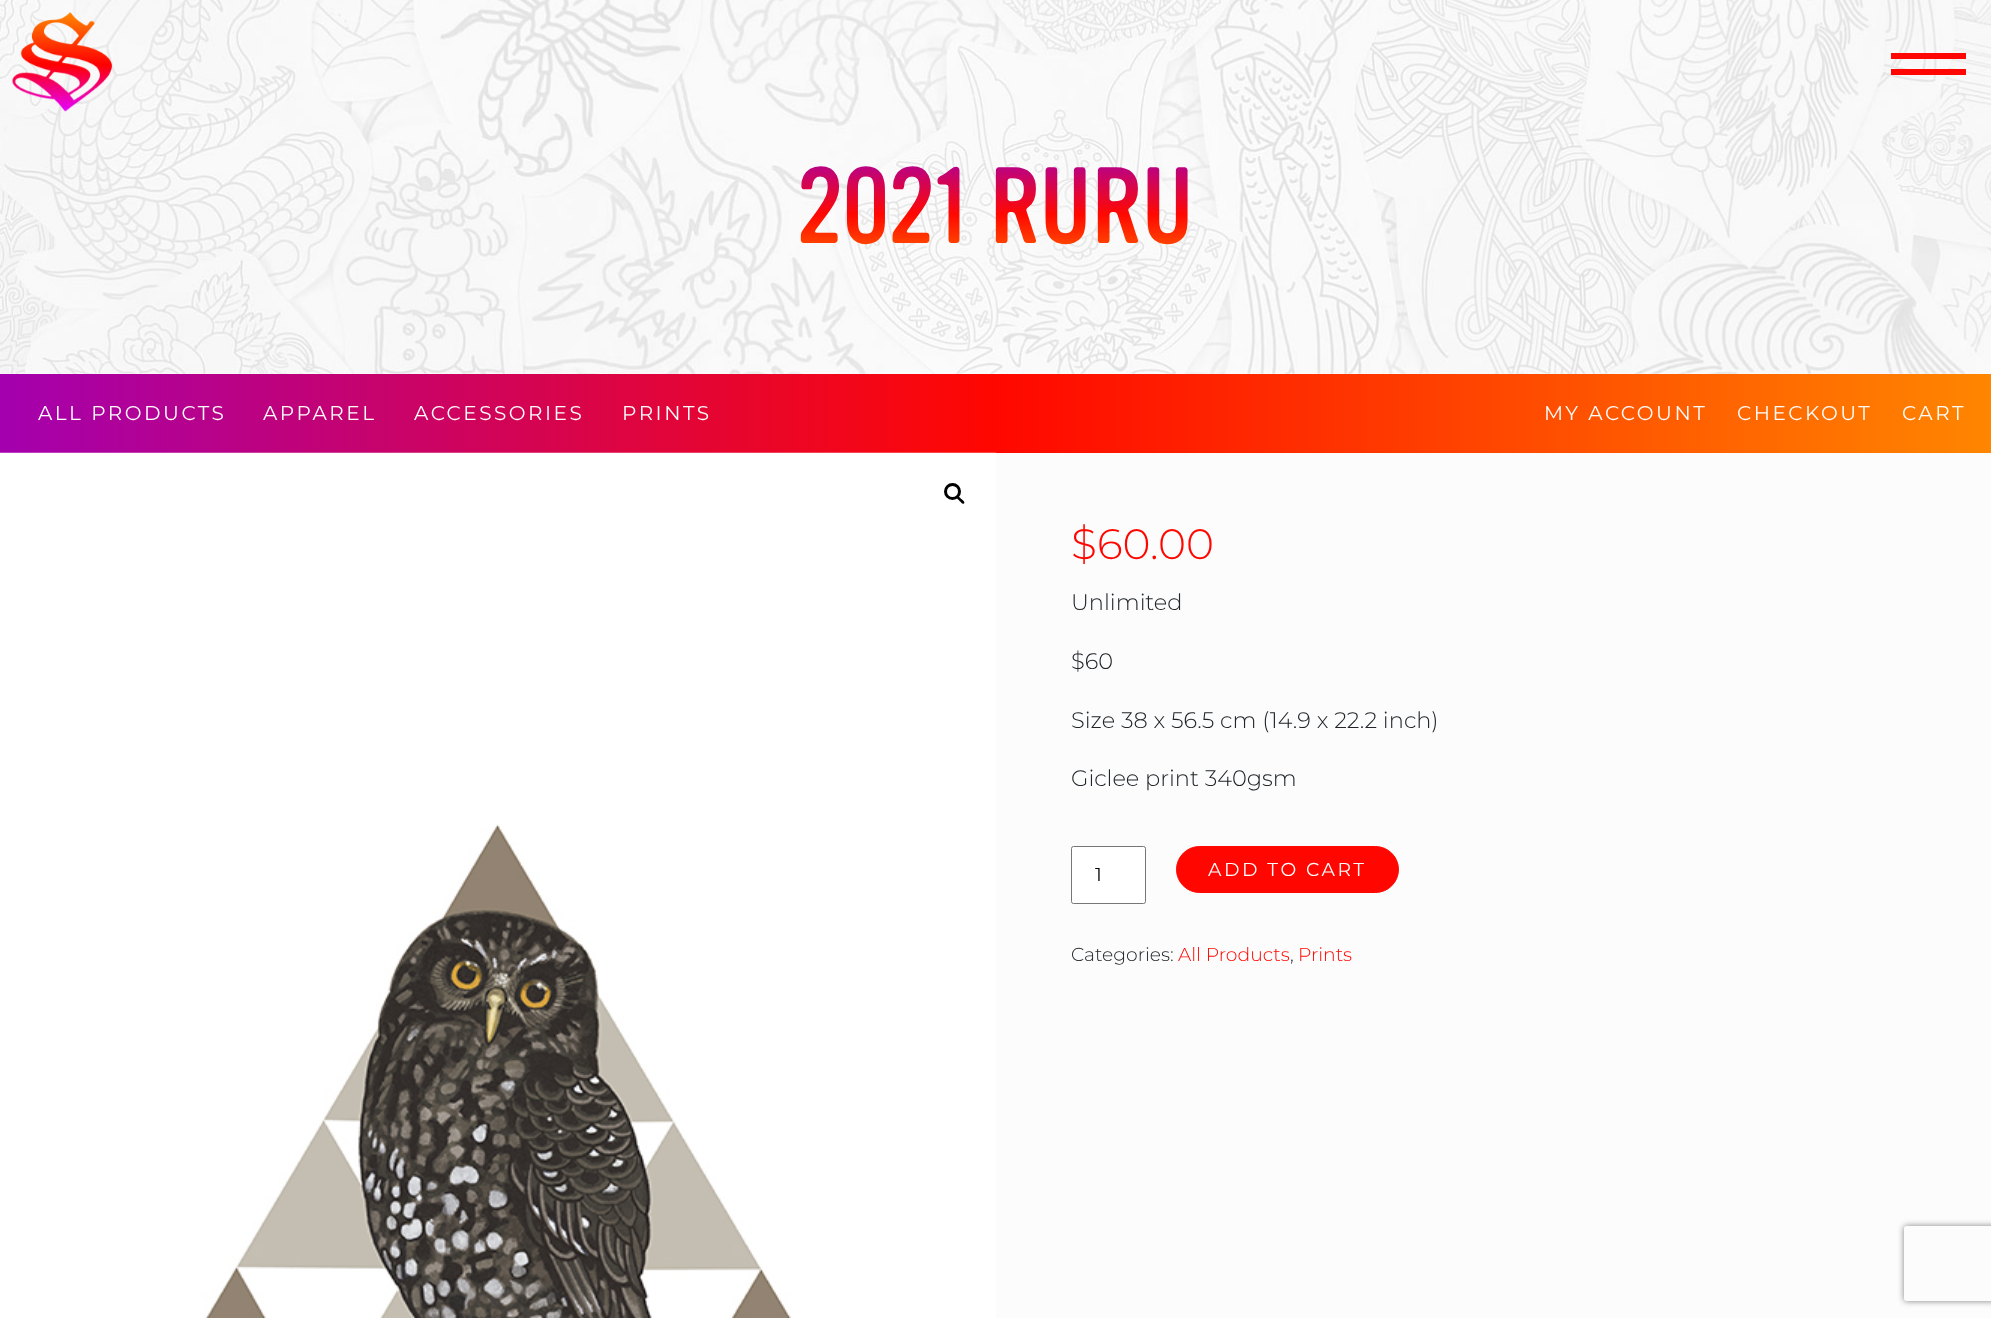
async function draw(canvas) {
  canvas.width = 1991
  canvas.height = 1318
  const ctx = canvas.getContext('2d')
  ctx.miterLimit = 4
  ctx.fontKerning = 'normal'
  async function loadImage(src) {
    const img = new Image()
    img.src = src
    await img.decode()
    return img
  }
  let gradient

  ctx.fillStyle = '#fcfcfc'
  ctx.fillRect(0, 0, 1991, 1318)
  ctx.drawImage(await loadImage('image0.png'), 0, 0, 1991, 374)
  ctx.drawImage(await loadImage('image1.png'), 12, 12, 100, 100)
  ctx.fillStyle = '#ff0700'
  ctx.fillRect(1891, 53, 75, 6)
  ctx.fillRect(1891, 69, 75, 6)
  ctx.font = '106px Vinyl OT'
  gradient = ctx.createLinearGradient(996, 279, 996, 150)
  gradient.addColorStop(0, '#ff8600')
  gradient.addColorStop(0.5, '#ff0800')
  gradient.addColorStop(1, '#a400af')
  ctx.fillStyle = gradient
  ctx.fillText('2021 RURU', 797, 243)
  gradient = ctx.createLinearGradient(0, 413, 1991, 413)
  gradient.addColorStop(0, '#a400af')
  gradient.addColorStop(0.5, '#ff0700')
  gradient.addColorStop(1, '#ff8600')
  ctx.fillStyle = gradient
  ctx.fillRect(0, 374, 1991, 79)
  ctx.letterSpacing = '2.5px'
  ctx.font = '20px Montserrat'
  ctx.fillStyle = '#fcfcfc'
  ctx.fillText('ALL PRODUCTS', 38, 420)
  ctx.fillText('APPAREL', 263, 420)
  ctx.fillText('ACCESSORIES', 414, 420)
  ctx.fillText('PRINTS', 622, 420)
  ctx.fillText('MY ACCOUNT', 1544, 420)
  ctx.fillText('CHECKOUT', 1737, 420)
  ctx.fillText('CART', 1902, 420)
  ctx.drawImage(await loadImage('image2.png'), 0, 452, 996, 866)
  ctx.beginPath()
  ctx.arc(952.5, 491.5, 7, 0, 2 * Math.PI)
  ctx.strokeStyle = '#000'
  ctx.lineWidth = 3
  ctx.stroke()
  ctx.fillStyle = '#000'
  ctx.beginPath()
  ctx.moveTo(957, 496.5)
  ctx.bezierCurveTo(958.5, 495, 960.5, 498.5, 961.5, 499)
  ctx.bezierCurveTo(962.5, 500, 965.5, 502, 964, 503.5)
  ctx.bezierCurveTo(962.5, 505, 960.5, 501.5, 959.5, 501)
  ctx.bezierCurveTo(959, 500, 955.5, 498, 957, 496.5)
  ctx.closePath()
  ctx.fill()
  ctx.letterSpacing = '0px'
  ctx.font = '300 42.5px Montserrat'
  ctx.fillStyle = '#ff0700'
  ctx.fillText('$60.00', 1071, 559)
  ctx.font = '300 22.5px Montserrat'
  ctx.fillStyle = '#212529'
  ctx.fillText('Unlimited', 1071, 610)
  ctx.fillText('$60', 1071, 669)
  ctx.fillText('Size 38 x 56.5 cm (14.9 x 22.2 inch)', 1071, 728)
  ctx.fillText('Giclee print 340gsm', 1071, 786)
  ctx.fillStyle = '#fff'
  ctx.beginPath()
  ctx.roundRect(1071.5, 846.5, 74, 57, 2)
  ctx.fill()
  ctx.strokeStyle = '#767676'
  ctx.lineWidth = 1
  ctx.stroke()
  ctx.font = '18.75px Montserrat'
  ctx.fillStyle = '#000'
  ctx.fillText('1', 1095, 881)
  ctx.fillStyle = '#ff0700'
  ctx.beginPath()
  ctx.roundRect(1176.5, 846.5, 222, 46, 23)
  ctx.fill()
  ctx.strokeStyle = '#ff0700'
  ctx.stroke()
  ctx.letterSpacing = '2.5px'
  ctx.fillStyle = '#fcfcfc'
  ctx.fillText('ADD TO CART', 1208, 876)
  ctx.letterSpacing = '0px'
  ctx.font = '300 18.75px Montserrat'
  ctx.fillStyle = '#212529'
  ctx.fillText('Categories:', 1071, 961)
  ctx.fillStyle = '#ff0700'
  ctx.fillText('All Products', 1178, 961)
  ctx.fillStyle = '#212529'
  ctx.fillText(',', 1290, 961)
  ctx.fillStyle = '#ff0700'
  ctx.fillText('Prints', 1298, 961)
  ctx.save()
  ctx.beginPath()
  ctx.moveTo(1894, 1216)
  ctx.lineTo(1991, 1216)
  ctx.lineTo(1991, 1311)
  ctx.lineTo(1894, 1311)
  ctx.closePath()
  ctx.moveTo(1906.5, 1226)
  ctx.lineTo(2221.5, 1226)
  ctx.bezierCurveTo(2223, 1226, 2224, 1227, 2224, 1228.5)
  ctx.lineTo(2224, 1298.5)
  ctx.bezierCurveTo(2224, 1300, 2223, 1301, 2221.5, 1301)
  ctx.lineTo(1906.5, 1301)
  ctx.bezierCurveTo(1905, 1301, 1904, 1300, 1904, 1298.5)
  ctx.lineTo(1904, 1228.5)
  ctx.bezierCurveTo(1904, 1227, 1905, 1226, 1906.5, 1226)
  ctx.closePath()
  ctx.clip('evenodd')
  ctx.fillStyle = '#808080'
  ctx.filter = 'blur(3px)'
  ctx.beginPath()
  ctx.roundRect(1904, 1226, 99, 75, 2.5)
  ctx.fill()
  ctx.filter = 'none'
  ctx.restore()
}

draw(document.querySelector('canvas'))
